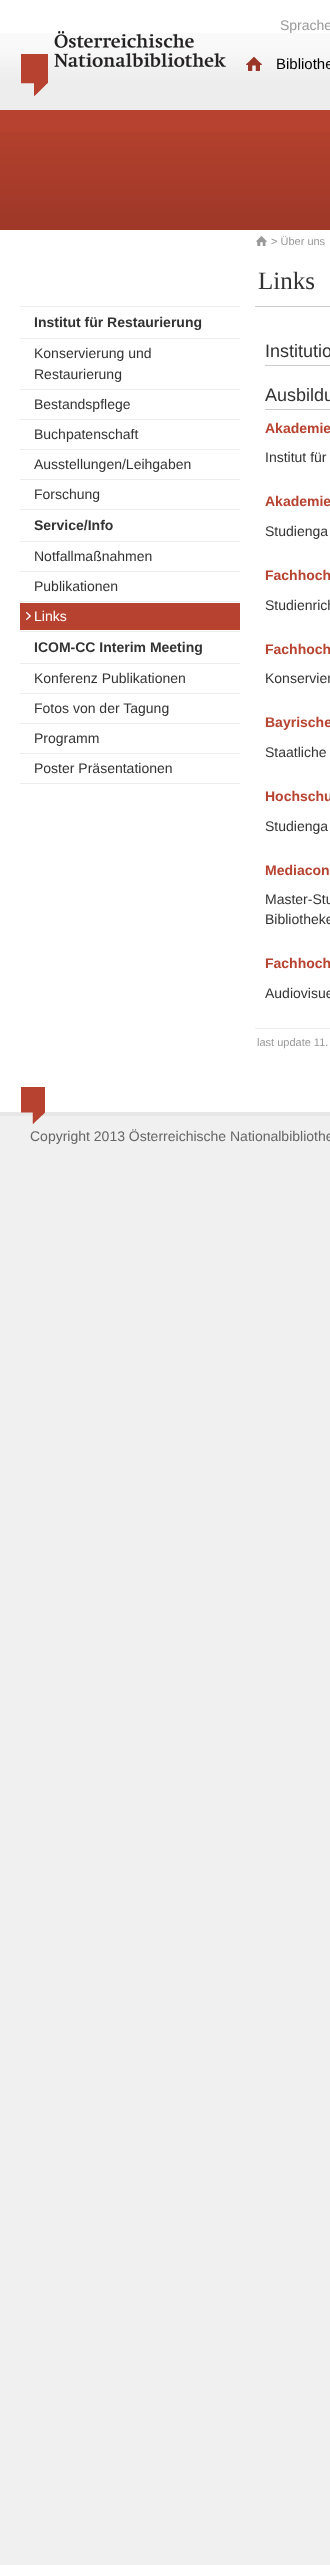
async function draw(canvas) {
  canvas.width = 330
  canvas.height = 2565
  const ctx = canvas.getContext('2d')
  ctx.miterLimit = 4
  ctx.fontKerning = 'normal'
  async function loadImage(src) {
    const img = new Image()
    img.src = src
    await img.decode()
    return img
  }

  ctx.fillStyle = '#f0f0f0'
  ctx.fillRect(0, 0, 330, 2565)
  ctx.fillStyle = '#fff'
  ctx.fillRect(0, 0, 330, 1112)
  ctx.drawImage(await loadImage('image0.png'), 0, 33, 330, 77)
  ctx.font = '14px Liberation Sans'
  ctx.fillStyle = '#999'
  ctx.fillText('Sprache', 280, 30)
  ctx.drawImage(await loadImage('image1.png'), 21, 31, 205, 65)
  ctx.drawImage(await loadImage('image2.png'), 246, 57, 16, 14)
  ctx.font = '15px Liberation Sans'
  ctx.fillStyle = '#000'
  ctx.fillText('Bibliothe', 276, 69)
  ctx.fillStyle = '#b7422f'
  ctx.fillRect(0, 110, 330, 22)
  ctx.drawImage(await loadImage('image3.png'), 0, 132, 330, 98)
  ctx.drawImage(await loadImage('image4.png'), 256, 236, 11, 10)
  ctx.font = '11px Liberation Sans'
  ctx.fillStyle = '#999'
  ctx.fillText('> Über uns', 271, 245)
  ctx.fillStyle = '#ededed'
  ctx.fillRect(20, 306, 220, 1)
  ctx.fillRect(20, 338, 220, 1)
  ctx.font = 'bold 14px Liberation Sans'
  ctx.fillStyle = '#333'
  ctx.fillText('Institut für Restaurierung', 34, 327)
  ctx.fillStyle = '#ededed'
  ctx.fillRect(20, 389, 220, 1)
  ctx.font = '14px Liberation Sans'
  ctx.fillStyle = '#333'
  ctx.fillText('Konservierung und', 34, 358)
  ctx.fillText('Restaurierung', 34, 379)
  ctx.fillStyle = '#ededed'
  ctx.fillRect(20, 419, 220, 1)
  ctx.fillStyle = '#333'
  ctx.fillText('Bestandspflege', 34, 409)
  ctx.fillStyle = '#ededed'
  ctx.fillRect(20, 449, 220, 1)
  ctx.fillStyle = '#333'
  ctx.fillText('Buchpatenschaft', 34, 439)
  ctx.fillStyle = '#ededed'
  ctx.fillRect(20, 479, 220, 1)
  ctx.fillStyle = '#333'
  ctx.fillText('Ausstellungen/Leihgaben', 34, 469)
  ctx.fillStyle = '#ededed'
  ctx.fillRect(20, 509, 220, 1)
  ctx.fillStyle = '#333'
  ctx.fillText('Forschung', 34, 499)
  ctx.fillStyle = '#ededed'
  ctx.fillRect(20, 541, 220, 1)
  ctx.font = 'bold 14px Liberation Sans'
  ctx.fillStyle = '#333'
  ctx.fillText('Service/Info', 34, 530)
  ctx.fillStyle = '#ededed'
  ctx.fillRect(20, 571, 220, 1)
  ctx.font = '14px Liberation Sans'
  ctx.fillStyle = '#333'
  ctx.fillText('Notfallmaßnahmen', 34, 561)
  ctx.fillStyle = '#ededed'
  ctx.fillRect(20, 601, 220, 1)
  ctx.fillStyle = '#333'
  ctx.fillText('Publikationen', 34, 591)
  ctx.fillStyle = '#ededed'
  ctx.fillRect(20, 631, 220, 1)
  ctx.fillStyle = '#b7422f'
  ctx.fillRect(20, 603, 220, 27)
  ctx.drawImage(await loadImage('image5.png'), 26, 612, 5, 8)
  ctx.fillStyle = '#fff'
  ctx.fillText('Links', 34, 621)
  ctx.fillStyle = '#ededed'
  ctx.fillRect(20, 663, 220, 1)
  ctx.font = 'bold 14px Liberation Sans'
  ctx.fillStyle = '#333'
  ctx.fillText('ICOM-CC Interim Meeting', 34, 652)
  ctx.fillStyle = '#ededed'
  ctx.fillRect(20, 693, 220, 1)
  ctx.font = '14px Liberation Sans'
  ctx.fillStyle = '#333'
  ctx.fillText('Konferenz Publikationen', 34, 683)
  ctx.fillStyle = '#ededed'
  ctx.fillRect(20, 723, 220, 1)
  ctx.fillStyle = '#333'
  ctx.fillText('Fotos von der Tagung', 34, 713)
  ctx.fillStyle = '#ededed'
  ctx.fillRect(20, 753, 220, 1)
  ctx.fillStyle = '#333'
  ctx.fillText('Programm', 34, 743)
  ctx.fillStyle = '#ededed'
  ctx.fillRect(20, 783, 220, 1)
  ctx.fillStyle = '#333'
  ctx.fillText('Poster Präsentationen', 34, 773)
  ctx.fillStyle = '#ccc'
  ctx.fillRect(255, 306, 75, 1)
  ctx.font = '25px Liberation Serif'
  ctx.fillStyle = '#333'
  ctx.fillText('Links', 258, 289)
  ctx.fillStyle = '#ccc'
  ctx.fillRect(265, 365, 65, 1)
  ctx.font = '18px Liberation Sans'
  ctx.fillStyle = '#333'
  ctx.fillText('Institutio', 265, 357)
  ctx.fillStyle = '#ccc'
  ctx.fillRect(265, 409, 65, 1)
  ctx.fillStyle = '#333'
  ctx.fillText('Ausbildu', 265, 401)
  ctx.font = 'bold 14px Liberation Sans'
  ctx.fillStyle = '#b7422f'
  ctx.fillText('Akademie', 265, 433)
  ctx.font = '14px Liberation Sans'
  ctx.fillStyle = '#333'
  ctx.fillText('Institut für', 265, 462)
  ctx.font = 'bold 14px Liberation Sans'
  ctx.fillStyle = '#b7422f'
  ctx.fillText('Akademie', 265, 506)
  ctx.font = '14px Liberation Sans'
  ctx.fillStyle = '#333'
  ctx.fillText('Studienga', 265, 536)
  ctx.font = 'bold 14px Liberation Sans'
  ctx.fillStyle = '#b7422f'
  ctx.fillText('Fachhoch', 265, 580)
  ctx.font = '14px Liberation Sans'
  ctx.fillStyle = '#333'
  ctx.fillText('Studienrich', 265, 610)
  ctx.font = 'bold 14px Liberation Sans'
  ctx.fillStyle = '#b7422f'
  ctx.fillText('Fachhoch', 265, 654)
  ctx.font = '14px Liberation Sans'
  ctx.fillStyle = '#333'
  ctx.fillText('Konservier', 265, 683)
  ctx.font = 'bold 14px Liberation Sans'
  ctx.fillStyle = '#b7422f'
  ctx.fillText('Bayrische', 265, 727)
  ctx.font = '14px Liberation Sans'
  ctx.fillStyle = '#333'
  ctx.fillText('Staatliche', 265, 757)
  ctx.font = 'bold 14px Liberation Sans'
  ctx.fillStyle = '#b7422f'
  ctx.fillText('Hochschu', 265, 801)
  ctx.font = '14px Liberation Sans'
  ctx.fillStyle = '#333'
  ctx.fillText('Studienga', 265, 831)
  ctx.font = 'bold 14px Liberation Sans'
  ctx.fillStyle = '#b7422f'
  ctx.fillText('Mediacon', 265, 875)
  ctx.font = '14px Liberation Sans'
  ctx.fillStyle = '#333'
  ctx.fillText('Master-Stu', 265, 904)
  ctx.fillText('Bibliotheke', 265, 924)
  ctx.font = 'bold 14px Liberation Sans'
  ctx.fillStyle = '#b7422f'
  ctx.fillText('Fachhoch', 265, 968)
  ctx.font = '14px Liberation Sans'
  ctx.fillStyle = '#333'
  ctx.fillText('Audiovisue', 265, 998)
  ctx.fillStyle = '#ededed'
  ctx.fillRect(255, 1028, 75, 1)
  ctx.font = '11px Liberation Sans'
  ctx.fillStyle = '#999'
  ctx.fillText('last update 11.', 257, 1046)
  ctx.fillStyle = '#e7e7e7'
  ctx.fillRect(0, 1112, 330, 4)
  ctx.drawImage(await loadImage('image6.png'), 21, 1087, 24, 37)
  ctx.font = '14px Liberation Sans'
  ctx.fillStyle = '#666'
  ctx.fillText('Copyright 2013 Österreichische Nationalbibliothe', 30, 1141)
}

draw(document.querySelector('canvas'))
